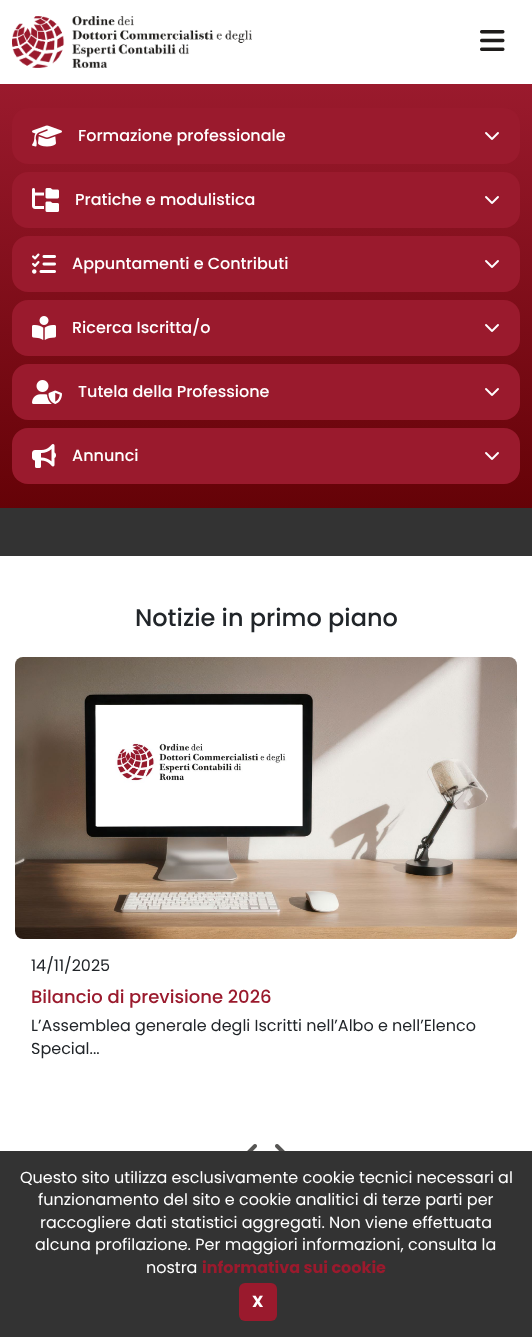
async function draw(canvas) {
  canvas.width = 532
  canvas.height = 1337
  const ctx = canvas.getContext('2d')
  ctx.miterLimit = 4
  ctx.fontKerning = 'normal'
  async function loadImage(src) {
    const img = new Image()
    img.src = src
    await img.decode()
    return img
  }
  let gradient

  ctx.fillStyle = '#fff'
  ctx.fillRect(0, 0, 532, 1337)
  ctx.drawImage(await loadImage('image0.png'), 12, 16, 240, 52)
  ctx.drawImage(await loadImage('image1.png'), 480, 30, 25, 21)
  gradient = ctx.createLinearGradient(266, 84, 266, 508)
  gradient.addColorStop(0, '#9a1a2d')
  gradient.addColorStop(1, '#650207')
  ctx.fillStyle = gradient
  ctx.fillRect(0, 84, 532, 424)
  ctx.fillStyle = '#9a1a2d'
  ctx.beginPath()
  ctx.roundRect(12, 108, 508, 56, 16)
  ctx.fill()
  ctx.drawImage(await loadImage('image2.png'), 32, 125, 30, 22)
  ctx.font = '500 16px Poppins'
  ctx.fillStyle = '#fff'
  ctx.fillText('Formazione professionale', 78, 141)
  ctx.drawImage(await loadImage('image3.png'), 485, 132, 14, 8)
  ctx.fillStyle = '#9a1a2d'
  ctx.beginPath()
  ctx.roundRect(12, 172, 508, 56, 16)
  ctx.fill()
  ctx.drawImage(await loadImage('image4.png'), 32, 188, 27, 24)
  ctx.fillStyle = '#fff'
  ctx.fillText('Pratiche e modulistica', 75, 205)
  ctx.drawImage(await loadImage('image3.png'), 485, 196, 14, 8)
  ctx.fillStyle = '#9a1a2d'
  ctx.beginPath()
  ctx.roundRect(12, 236, 508, 56, 16)
  ctx.fill()
  ctx.drawImage(await loadImage('image5.png'), 32, 253, 24, 21)
  ctx.fillStyle = '#fff'
  ctx.fillText('Appuntamenti e Contributi', 72, 269)
  ctx.drawImage(await loadImage('image3.png'), 485, 260, 14, 8)
  ctx.fillStyle = '#9a1a2d'
  ctx.beginPath()
  ctx.roundRect(12, 300, 508, 56, 16)
  ctx.fill()
  ctx.drawImage(await loadImage('image6.png'), 32, 316, 24, 24)
  ctx.fillStyle = '#fff'
  ctx.fillText('Ricerca Iscritta/o', 72, 333)
  ctx.drawImage(await loadImage('image3.png'), 485, 324, 14, 8)
  ctx.fillStyle = '#9a1a2d'
  ctx.beginPath()
  ctx.roundRect(12, 364, 508, 56, 16)
  ctx.fill()
  ctx.drawImage(await loadImage('image7.png'), 32, 380, 30, 24)
  ctx.fillStyle = '#fff'
  ctx.fillText('Tutela della Professione', 78, 397)
  ctx.drawImage(await loadImage('image3.png'), 485, 388, 14, 8)
  ctx.fillStyle = '#9a1a2d'
  ctx.beginPath()
  ctx.roundRect(12, 428, 508, 56, 16)
  ctx.fill()
  ctx.drawImage(await loadImage('image8.png'), 32, 444, 24, 24)
  ctx.fillStyle = '#fff'
  ctx.fillText('Annunci', 72, 461)
  ctx.drawImage(await loadImage('image3.png'), 485, 452, 14, 8)
  ctx.fillStyle = '#333'
  ctx.fillRect(0, 508, 532, 48)
  ctx.font = '500 24px Poppins'
  ctx.fillStyle = '#212529'
  ctx.fillText('Notizie in primo piano', 135, 626)
  ctx.drawImage(await loadImage('image9.png'), 15, 657, 502, 282)
  ctx.font = '16px Poppins'
  ctx.fillText('14/11/2025', 31, 971)
  ctx.font = '500 18px Poppins'
  ctx.fillStyle = '#9a1a2d'
  ctx.fillText('Bilancio di previsione 2026', 31, 1003)
  ctx.font = '16px Poppins'
  ctx.fillStyle = '#212529'
  ctx.fillText('L’Assemblea generale degli Iscritti nell’Albo e nell’Elenco', 31, 1031)
  ctx.fillText('Special...', 31, 1054)
  ctx.drawImage(await loadImage('image10.png'), 247, 1144, 10, 7)
  ctx.drawImage(await loadImage('image11.png'), 275, 1144, 10, 7)
  ctx.fillStyle = '#333'
  ctx.fillRect(0, 1151, 532, 186)
  ctx.fillStyle = '#fff'
  ctx.fillText('Questo sito utilizza esclusivamente cookie tecnici necessari al', 20, 1183)
  ctx.fillText('funzionamento del sito e cookie analitici di terze parti per', 38, 1205)
  ctx.fillText('raccogliere dati statistici aggregati. Non viene effettuata', 40, 1228)
  ctx.fillText('alcuna profilazione. Per maggiori informazioni, consulta la', 35, 1250)
  ctx.fillText('nostra', 146, 1273)
  ctx.font = 'bold 16px Poppins'
  ctx.fillStyle = '#9a1a2d'
  ctx.fillText('informativa sui cookie', 202, 1273)
  ctx.beginPath()
  ctx.roundRect(239, 1283, 38, 38, 6)
  ctx.fill()
  ctx.fillStyle = '#fff'
  ctx.fillText('X', 252, 1307)
}

draw(document.querySelector('canvas'))
